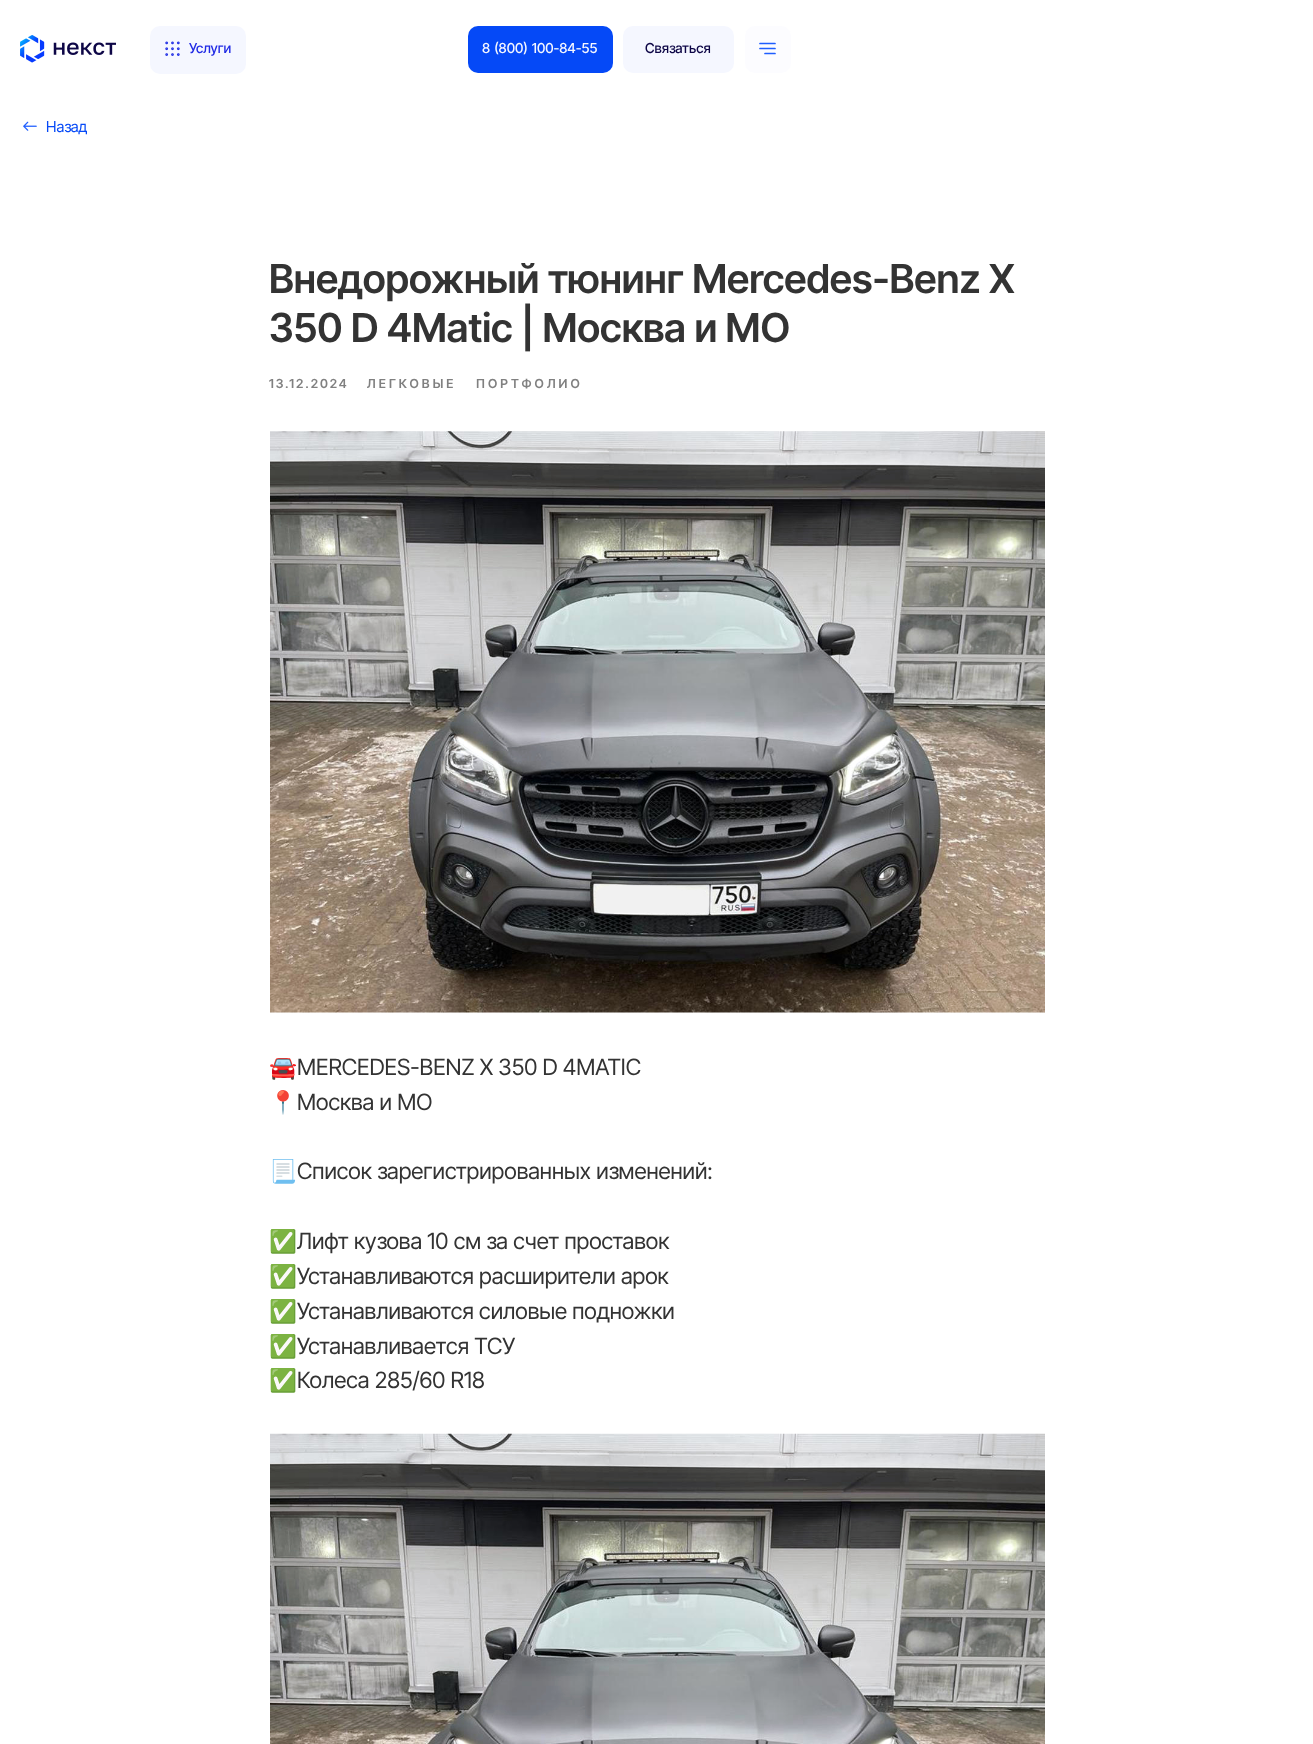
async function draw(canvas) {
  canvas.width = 1313
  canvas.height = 1744
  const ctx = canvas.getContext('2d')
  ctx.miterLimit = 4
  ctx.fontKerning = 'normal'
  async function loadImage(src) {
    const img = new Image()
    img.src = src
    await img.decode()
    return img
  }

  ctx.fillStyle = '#fff'
  ctx.fillRect(0, 0, 1313, 1744)
  ctx.drawImage(await loadImage('image0.png'), 20, 35, 96, 28)
  ctx.fillStyle = '#f5f7ff'
  ctx.beginPath()
  ctx.roundRect(150, 26, 96, 48, 10)
  ctx.fill()
  ctx.drawImage(await loadImage('image1.png'), 165, 41, 15, 15)
  ctx.font = '500 13.75px Inter Tight'
  ctx.fillStyle = '#212be5'
  ctx.fillText('Услуги', 189, 53)
  ctx.fillStyle = '#0549f7'
  ctx.beginPath()
  ctx.roundRect(468, 26, 145, 47, 10)
  ctx.fill()
  ctx.wordSpacing = '1px'
  ctx.fillStyle = '#f5f7ff'
  ctx.fillText('8 (800) 100-84-55', 482, 53)
  ctx.beginPath()
  ctx.roundRect(623, 26, 111, 47, 10)
  ctx.fill()
  ctx.wordSpacing = '0px'
  ctx.fillStyle = '#0d0646'
  ctx.fillText('Связаться', 645, 53)
  ctx.fillStyle = '#fcfcff'
  ctx.beginPath()
  ctx.roundRect(745, 26, 46, 47, 10)
  ctx.fill()
  ctx.beginPath()
  ctx.moveTo(760, 48.5)
  ctx.lineTo(775, 48.5)
  ctx.moveTo(760, 43.5)
  ctx.lineTo(775, 43.5)
  ctx.moveTo(765, 53.5)
  ctx.lineTo(775, 53.5)
  ctx.strokeStyle = '#1f5eff'
  ctx.lineWidth = 1.7
  ctx.lineCap = 'round'
  ctx.lineJoin = 'round'
  ctx.stroke()
  ctx.drawImage(await loadImage('image2.png'), 23, 121, 14, 10)
  ctx.font = '15px Inter Tight'
  ctx.fillStyle = '#0549f7'
  ctx.fillText('Назад', 46, 132)
  ctx.font = '600 40px Inter Tight'
  ctx.fillStyle = '#333'
  ctx.fillText('Внедорожный тюнинг Mercedes-Benz X', 269, 293)
  ctx.fillText('350 D 4Matic | Москва и МO', 269, 342)
  ctx.letterSpacing = '1.9px'
  ctx.font = '600 12.5px Inter Tight'
  ctx.fillStyle = '#808080'
  ctx.fillText('13.12.2024', 269, 388)
  ctx.letterSpacing = '3.1px'
  ctx.fillText('ЛЕГКОВЫЕ', 367, 388)
  ctx.fillText('ПОРТФОЛИО', 476, 388)
  ctx.drawImage(await loadImage('image3.png'), 270, 431, 775, 582)
  ctx.letterSpacing = '0px'
  ctx.font = '22.5px Noto Color Emoji'
  ctx.fillStyle = '#333'
  ctx.fillText('🚘', 269, 1075)
  ctx.font = '22.5px Inter Tight'
  ctx.fillText('MERCEDES-BENZ X 350 D 4MATIC', 297, 1075)
  ctx.font = '22.5px Noto Color Emoji'
  ctx.fillText('📍', 269, 1110)
  ctx.font = '22.5px Inter Tight'
  ctx.fillText('Москва и МO', 297, 1110)
  ctx.font = '22.5px Noto Color Emoji'
  ctx.fillText('📃', 269, 1179)
  ctx.font = '22.5px Inter Tight'
  ctx.fillText('Список зарегистрированных изменений:', 297, 1179)
  ctx.font = '22.5px Noto Color Emoji'
  ctx.fillText('✅', 269, 1249)
  ctx.font = '22.5px Inter Tight'
  ctx.fillText('Лифт кузова 10 см за счет проставок', 297, 1249)
  ctx.font = '22.5px Noto Color Emoji'
  ctx.fillText('✅', 269, 1284)
  ctx.font = '22.5px Inter Tight'
  ctx.fillText('Устанавливаются расширители арок', 297, 1284)
  ctx.font = '22.5px Noto Color Emoji'
  ctx.fillText('✅', 269, 1319)
  ctx.font = '22.5px Inter Tight'
  ctx.fillText('Устанавливаются силовые подножки', 297, 1319)
  ctx.font = '22.5px Noto Color Emoji'
  ctx.fillText('✅', 269, 1354)
  ctx.font = '22.5px Inter Tight'
  ctx.fillText('Устанавливается ТСУ', 297, 1354)
  ctx.font = '22.5px Noto Color Emoji'
  ctx.fillText('✅', 269, 1388)
  ctx.font = '22.5px Inter Tight'
  ctx.fillText('Колеса 285/60 R18', 297, 1388)
  ctx.drawImage(await loadImage('image4.png'), 270, 1433, 775, 311)
}

draw(document.querySelector('canvas'))
